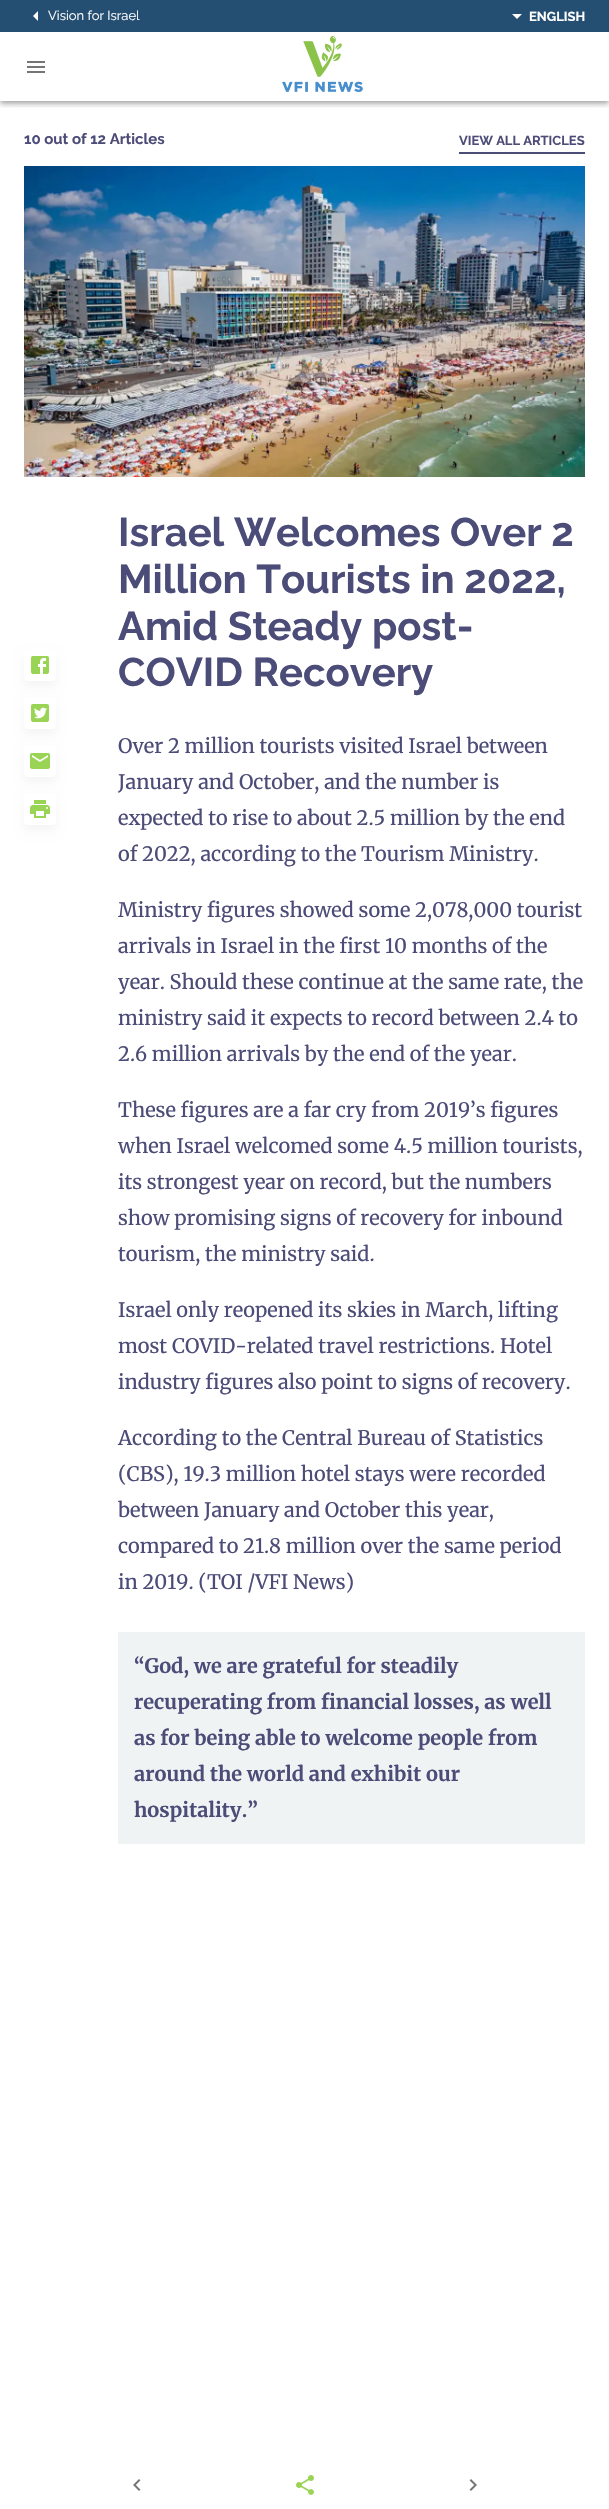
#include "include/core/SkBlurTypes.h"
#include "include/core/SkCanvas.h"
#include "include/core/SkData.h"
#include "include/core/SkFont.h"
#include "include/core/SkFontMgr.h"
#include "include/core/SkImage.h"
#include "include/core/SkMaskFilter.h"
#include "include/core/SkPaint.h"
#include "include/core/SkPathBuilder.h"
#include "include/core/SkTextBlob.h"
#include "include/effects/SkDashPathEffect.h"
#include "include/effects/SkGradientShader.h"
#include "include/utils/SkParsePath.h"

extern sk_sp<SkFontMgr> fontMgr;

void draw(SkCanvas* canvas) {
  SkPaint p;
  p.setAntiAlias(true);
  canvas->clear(SK_ColorWHITE);
  canvas->save();
  canvas->clipRect(SkRect::MakeLTRB(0, 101, 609, 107));
  p.setColor(SkColorSetARGB(31, 0, 0, 0));
  p.setMaskFilter(SkMaskFilter::MakeBlur(kNormal_SkBlurStyle, 5));
  canvas->drawRect(SkRect::MakeLTRB(0, 1, 609, 102), p);
  p.setMaskFilter(nullptr);
  canvas->restore();
  canvas->save();
  canvas->clipRect(SkRect::MakeLTRB(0, 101, 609, 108));
  p.setColor(SkColorSetARGB(36, 0, 0, 0));
  p.setMaskFilter(SkMaskFilter::MakeBlur(kNormal_SkBlurStyle, 2.5f));
  canvas->drawRect(SkRect::MakeLTRB(0, 4, 609, 105), p);
  p.setMaskFilter(nullptr);
  canvas->restore();
  canvas->save();
  canvas->clipRect(SkRect::MakeLTRB(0, 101, 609, 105));
  p.setColor(SkColorSetARGB(51, 0, 0, 0));
  p.setMaskFilter(SkMaskFilter::MakeBlur(kNormal_SkBlurStyle, 2));
  canvas->drawRect(SkRect::MakeLTRB(1, 3, 608, 102), p);
  p.setMaskFilter(nullptr);
  canvas->restore();
  p.setColor(SkColorSetRGB(37, 79, 114));
  canvas->drawRect(SkRect::MakeLTRB(0, 0, 609, 32), p);
  p.setColor(SK_ColorWHITE);
  canvas->drawPath(SkPathBuilder().moveTo(38, 11).lineTo(33, 16).lineTo(38, 21).close().detach(), p);
  canvas->drawPath(SkPathBuilder().moveTo(512, 14).lineTo(517, 19).lineTo(522, 14).close().detach(), p);
  canvas->drawImageRect(SkImages::DeferredFromEncodedData(SkData::MakeFromFileName("images/1.png")), SkRect::MakeLTRB(27, 61, 45, 73), SkSamplingOptions());
  canvas->drawImageRect(SkImages::DeferredFromEncodedData(SkData::MakeFromFileName("images/2.png")), SkRect::MakeLTRB(282, 36, 363, 92), SkSamplingOptions());
  p.setColor(SkColorSetRGB(76, 76, 120));
  canvas->drawRect(SkRect::MakeLTRB(459, 152, 585, 154), p);
  canvas->drawImageRect(SkImages::DeferredFromEncodedData(SkData::MakeFromFileName("images/3.png")), SkRect::MakeLTRB(24, 166, 585, 477), SkSamplingOptions());
  p.setColor(SkColorSetARGB(10, 0, 0, 0));
  p.setMaskFilter(SkMaskFilter::MakeBlur(kNormal_SkBlurStyle, 5));
  canvas->drawRoundRect(SkRect::MakeLTRB(24, 655, 56, 687), 4, 4, p);
  p.setMaskFilter(nullptr);
  p.setColor(SK_ColorWHITE);
  canvas->drawRoundRect(SkRect::MakeLTRB(24, 649, 56, 681), 4, 4, p);
  canvas->drawImageRect(SkImages::DeferredFromEncodedData(SkData::MakeFromFileName("images/4.png")), SkRect::MakeLTRB(31, 656, 49, 674), SkSamplingOptions());
  p.setColor(SkColorSetARGB(10, 0, 0, 0));
  p.setMaskFilter(SkMaskFilter::MakeBlur(kNormal_SkBlurStyle, 5));
  canvas->drawRoundRect(SkRect::MakeLTRB(24, 703, 56, 735), 4, 4, p);
  p.setMaskFilter(nullptr);
  p.setColor(SK_ColorWHITE);
  canvas->drawRoundRect(SkRect::MakeLTRB(24, 697, 56, 729), 4, 4, p);
  canvas->drawImageRect(SkImages::DeferredFromEncodedData(SkData::MakeFromFileName("images/5.png")), SkRect::MakeLTRB(31, 704, 49, 722), SkSamplingOptions());
  p.setColor(SkColorSetARGB(10, 0, 0, 0));
  p.setMaskFilter(SkMaskFilter::MakeBlur(kNormal_SkBlurStyle, 5));
  canvas->drawRoundRect(SkRect::MakeLTRB(24, 751, 56, 783), 4, 4, p);
  p.setMaskFilter(nullptr);
  p.setColor(SK_ColorWHITE);
  canvas->drawRoundRect(SkRect::MakeLTRB(24, 745, 56, 777), 4, 4, p);
  canvas->drawImageRect(SkImages::DeferredFromEncodedData(SkData::MakeFromFileName("images/6.png")), SkRect::MakeLTRB(30, 753, 50, 769), SkSamplingOptions());
  p.setColor(SkColorSetARGB(10, 0, 0, 0));
  p.setMaskFilter(SkMaskFilter::MakeBlur(kNormal_SkBlurStyle, 5));
  canvas->drawRoundRect(SkRect::MakeLTRB(24, 799, 56, 831), 4, 4, p);
  p.setMaskFilter(nullptr);
  p.setColor(SK_ColorWHITE);
  canvas->drawRoundRect(SkRect::MakeLTRB(24, 793, 56, 825), 4, 4, p);
  canvas->drawImageRect(SkImages::DeferredFromEncodedData(SkData::MakeFromFileName("images/7.png")), SkRect::MakeLTRB(30, 800, 50, 818), SkSamplingOptions());
  p.setColor(SkColorSetRGB(239, 243, 243));
  canvas->drawRect(SkRect::MakeLTRB(118, 1632, 585, 1844), p);
  canvas->drawImageRect(SkImages::DeferredFromEncodedData(SkData::MakeFromFileName("images/8.png")), SkRect::MakeLTRB(133, 2479, 141, 2491), SkSamplingOptions());
  canvas->drawImageRect(SkImages::DeferredFromEncodedData(SkData::MakeFromFileName("images/9.png")), SkRect::MakeLTRB(296, 2475, 314, 2495), SkSamplingOptions());
  canvas->drawImageRect(SkImages::DeferredFromEncodedData(SkData::MakeFromFileName("images/10.png")), SkRect::MakeLTRB(469, 2479, 477, 2491), SkSamplingOptions());
  SkFont font1(fontMgr->matchFamilyStyle("Raleway", SkFontStyle::Normal()), 13);
  font1.setSubpixel(true);
  p.setColor(SK_ColorWHITE);
  canvas->drawString("Vision for Israel", 48, 20, font1, p);
  SkFont font2(fontMgr->matchFamilyStyle("Raleway", SkFontStyle::Bold()), 13);
  font2.setSubpixel(true);
  canvas->drawString("ENGLISH", 529, 21, font2, p);
  SkFont font3(fontMgr->matchFamilyStyle("Raleway", SkFontStyle::Bold()), 15);
  font3.setSubpixel(true);
  p.setColor(SkColorSetRGB(76, 76, 120));
  canvas->drawString("10 out of 12 Articles", 24, 144, font3, p);
  canvas->drawString("VIEW ALL ARTICLES", 459, 145, font2, p);
  SkFont font4(fontMgr->matchFamilyStyle("Raleway", SkFontStyle::Bold()), 40);
  font4.setSubpixel(true);
  canvas->drawString("Israel Welcomes Over 2", 118, 546, font4, p);
  canvas->drawString("Million Tourists in 2022,", 118, 593, font4, p);
  canvas->drawString("Amid Steady post-", 118, 640, font4, p);
  canvas->drawString("COVID Recovery", 118, 686, font4, p);
  SkFont font5(fontMgr->matchFamilyStyle("Merriweather", SkFontStyle::Normal()), 20);
  font5.setSubpixel(true);
  canvas->drawString("Over 2 million tourists visited Israel between", 118, 753, font5, p);
  canvas->drawString("January and October, and the number is", 118, 789, font5, p);
  canvas->drawString("expected to rise to about 2.5 million by the end", 118, 825, font5, p);
  canvas->drawString("of 2022, according to the Tourism Ministry.", 118, 861, font5, p);
  canvas->drawString("Ministry figures showed some 2,078,000 tourist", 118, 917, font5, p);
  canvas->drawString("arrivals in Israel in the first 10 months of the", 118, 953, font5, p);
  canvas->drawString("year. Should these continue at the same rate, the", 118, 989, font5, p);
  canvas->drawString("ministry said it expects to record between 2.4 to", 118, 1025, font5, p);
  canvas->drawString("2.6 million arrivals by the end of the year.", 118, 1061, font5, p);
  canvas->drawString("These figures are a far cry from 2019’s figures", 118, 1117, font5, p);
  canvas->drawString("when Israel welcomed some 4.5 million tourists,", 118, 1153, font5, p);
  canvas->drawString("its strongest year on record, but the numbers", 118, 1189, font5, p);
  canvas->drawString("show promising signs of recovery for inbound", 118, 1225, font5, p);
  canvas->drawString("tourism, the ministry said.", 118, 1261, font5, p);
  canvas->drawString("Israel only reopened its skies in March, lifting", 118, 1317, font5, p);
  canvas->drawString("most COVID-related travel restrictions. Hotel", 118, 1353, font5, p);
  canvas->drawString("industry figures also point to signs of recovery.", 118, 1389, font5, p);
  canvas->drawString("According to the Central Bureau of Statistics", 118, 1445, font5, p);
  canvas->drawString("(CBS), 19.3 million hotel stays were recorded", 118, 1481, font5, p);
  canvas->drawString("between January and October this year,", 118, 1517, font5, p);
  canvas->drawString("compared to 21.8 million over the same period", 118, 1553, font5, p);
  canvas->drawString("in 2019. (TOI /VFI News)", 118, 1589, font5, p);
  SkFont font6(fontMgr->matchFamilyStyle("Merriweather", SkFontStyle::Bold()), 20);
  font6.setSubpixel(true);
  canvas->drawString("“God, we are grateful for steadily", 134, 1673, font6, p);
  canvas->drawString("recuperating from financial losses, as well", 134, 1709, font6, p);
  canvas->drawString("as for being able to welcome people from", 134, 1745, font6, p);
  canvas->drawString("around the world and exhibit our", 134, 1781, font6, p);
  canvas->drawString("hospitality.”", 134, 1817, font6, p);
}
